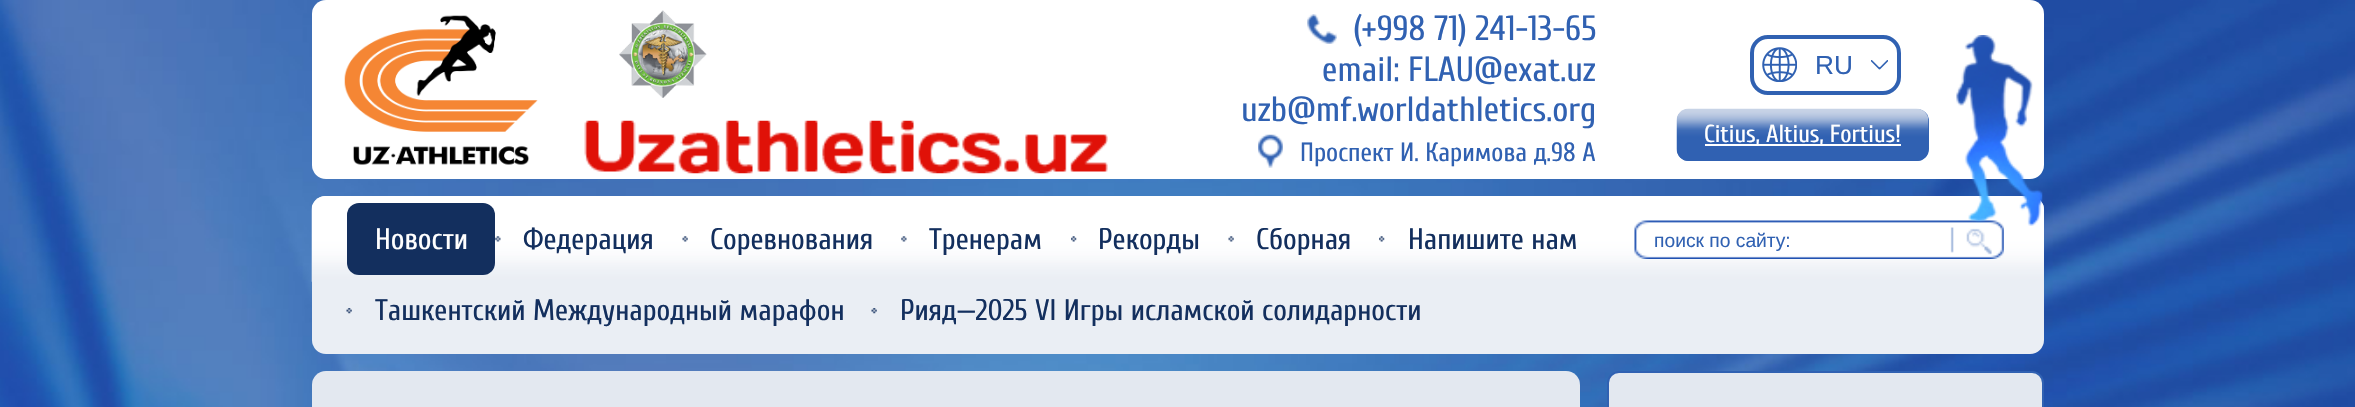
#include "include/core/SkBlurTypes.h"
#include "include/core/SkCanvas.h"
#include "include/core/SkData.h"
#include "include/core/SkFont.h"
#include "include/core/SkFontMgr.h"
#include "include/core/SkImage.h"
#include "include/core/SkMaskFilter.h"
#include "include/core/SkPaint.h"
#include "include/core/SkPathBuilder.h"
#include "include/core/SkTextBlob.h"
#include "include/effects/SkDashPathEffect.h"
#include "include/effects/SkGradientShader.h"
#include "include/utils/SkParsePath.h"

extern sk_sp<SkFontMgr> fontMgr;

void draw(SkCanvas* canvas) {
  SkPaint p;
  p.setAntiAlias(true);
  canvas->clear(SK_ColorWHITE);
  canvas->drawImageRect(SkImages::DeferredFromEncodedData(SkData::MakeFromFileName("images/1.png")), SkRect::MakeLTRB(0, 0, 2355, 407), SkSamplingOptions());
  p.setColor(SK_ColorWHITE);
  canvas->drawRoundRect(SkRect::MakeLTRB(312, 0, 2044, 179), 14, 14, p);
  canvas->drawImageRect(SkImages::DeferredFromEncodedData(SkData::MakeFromFileName("images/2.png")), SkRect::MakeLTRB(344, 15, 538, 165), SkSamplingOptions());
  canvas->drawImageRect(SkImages::DeferredFromEncodedData(SkData::MakeFromFileName("images/3.png")), SkRect::MakeLTRB(619, 10, 707, 98), SkSamplingOptions());
  canvas->drawImageRect(SkImages::DeferredFromEncodedData(SkData::MakeFromFileName("images/4.png")), SkRect::MakeLTRB(584, 120, 1108, 174), SkSamplingOptions());
  canvas->drawImageRect(SkImages::DeferredFromEncodedData(SkData::MakeFromFileName("images/5.png")), SkRect::MakeLTRB(1307, 14, 1337, 44), SkSamplingOptions());
  canvas->drawImageRect(SkImages::DeferredFromEncodedData(SkData::MakeFromFileName("images/6.png")), SkRect::MakeLTRB(1258, 134, 1283, 168), SkSamplingOptions());
  p.setColor(SkColorSetRGB(48, 97, 178));
  canvas->drawRoundRect(SkRect::MakeLTRB(1677, 109, 1929, 161), 12, 12, p);
  canvas->drawImageRect(SkImages::DeferredFromEncodedData(SkData::MakeFromFileName("images/7.png")), SkRect::MakeLTRB(1676, 108, 1929, 161), SkSamplingOptions());
  p.setColor(SK_ColorWHITE);
  canvas->drawRect(SkRect::MakeLTRB(1705, 144, 1901, 146), p);
  p.setColor(SkColorSetRGB(234, 238, 244));
  canvas->drawRoundRect(SkRect::MakeLTRB(312, 196, 2044, 354), 14, 14, p);
  canvas->drawImageRect(SkImages::DeferredFromEncodedData(SkData::MakeFromFileName("images/11.png")), SkRect::MakeLTRB(311, 196, 2044, 282), SkSamplingOptions());
  canvas->drawImageRect(SkImages::DeferredFromEncodedData(SkData::MakeFromFileName("images/16.png")), SkRect::MakeLTRB(1634, 220, 2004, 259), SkSamplingOptions());
  canvas->drawImageRect(SkImages::DeferredFromEncodedData(SkData::MakeFromFileName("images/8.png")), SkRect::MakeLTRB(1956, 35, 2043, 226), SkSamplingOptions());
  p.setStyle(SkPaint::kStroke_Style);
  p.setStrokeWidth(4);
  p.setColor(SkColorSetRGB(48, 97, 178));
  canvas->drawRoundRect(SkRect::MakeLTRB(1752, 37, 1899, 93), 16, 16, p);
  canvas->drawImageRect(SkImages::DeferredFromEncodedData(SkData::MakeFromFileName("images/9.png")), SkRect::MakeLTRB(1762, 47, 1797, 82), SkSamplingOptions());
  canvas->drawImageRect(SkImages::DeferredFromEncodedData(SkData::MakeFromFileName("images/10.png")), SkRect::MakeLTRB(1871, 60, 1888, 70), SkSamplingOptions());
  p.setStyle(SkPaint::kFill_Style);
  p.setColor(SkColorSetRGB(19, 47, 94));
  canvas->drawRoundRect(SkRect::MakeLTRB(347, 203, 495, 275), 12, 12, p);
  canvas->drawImageRect(SkImages::DeferredFromEncodedData(SkData::MakeFromFileName("images/12.png")), SkRect::MakeLTRB(495, 236, 501, 242), SkSamplingOptions());
  canvas->drawImageRect(SkImages::DeferredFromEncodedData(SkData::MakeFromFileName("images/13.png")), SkRect::MakeLTRB(682, 236, 688, 242), SkSamplingOptions());
  canvas->drawImageRect(SkImages::DeferredFromEncodedData(SkData::MakeFromFileName("images/12.png")), SkRect::MakeLTRB(901, 236, 907, 242), SkSamplingOptions());
  canvas->drawImageRect(SkImages::DeferredFromEncodedData(SkData::MakeFromFileName("images/14.png")), SkRect::MakeLTRB(1071, 236, 1077, 242), SkSamplingOptions());
  canvas->drawImageRect(SkImages::DeferredFromEncodedData(SkData::MakeFromFileName("images/13.png")), SkRect::MakeLTRB(1228, 236, 1234, 242), SkSamplingOptions());
  canvas->drawImageRect(SkImages::DeferredFromEncodedData(SkData::MakeFromFileName("images/14.png")), SkRect::MakeLTRB(1379, 236, 1385, 242), SkSamplingOptions());
  canvas->drawImageRect(SkImages::DeferredFromEncodedData(SkData::MakeFromFileName("images/15.png")), SkRect::MakeLTRB(346, 308, 352, 314), SkSamplingOptions());
  canvas->drawImageRect(SkImages::DeferredFromEncodedData(SkData::MakeFromFileName("images/15.png")), SkRect::MakeLTRB(871, 308, 877, 314), SkSamplingOptions());
  p.setColor(SkColorSetRGB(227, 232, 240));
  canvas->drawRoundRect(SkRect::MakeLTRB(312, 371, 1580, 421), 14, 14, p);
  canvas->drawRoundRect(SkRect::MakeLTRB(1608, 372, 2043, 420), 11, 11, p);
  p.setStyle(SkPaint::kStroke_Style);
  p.setStrokeWidth(2);
  p.setColor(SkColorSetRGB(48, 97, 178));
  canvas->drawRoundRect(SkRect::MakeLTRB(1608, 372, 2043, 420), 11, 11, p);
  SkFont font1(fontMgr->matchFamilyStyle("Cuprum", SkFontStyle::Normal()), 35);
  font1.setSubpixel(true);
  p.setStyle(SkPaint::kFill_Style);
  canvas->drawString("(+998 71) 241-13-65", 1353, 40, font1, p);
  canvas->drawString("email: FLAU@exat.uz", 1322, 81, font1, p);
  canvas->drawString("uzb@mf.worldathletics.org", 1241, 121, font1, p);
  SkFont font2(fontMgr->matchFamilyStyle("Cuprum", SkFontStyle::Normal()), 26.25f);
  font2.setSubpixel(true);
  canvas->drawString("Проспект И. Каримова д.98 А", 1300, 161, font2, p);
  SkFont font3(fontMgr->matchFamilyStyle("Cuprum", SkFontStyle::Normal()), 24.5f);
  font3.setSubpixel(true);
  p.setColor(SK_ColorWHITE);
  canvas->drawString("Citius, Altius, Fortius!", 1704, 142, font3, p);
  SkFont font4(fontMgr->matchFamilyStyle("Liberation Sans", SkFontStyle::Normal()), 26.25f);
  font4.setSubpixel(true);
  p.setColor(SkColorSetRGB(48, 97, 178));
  canvas->drawString("RU", 1815, 74, font4, p);
  SkFont font5(fontMgr->matchFamilyStyle("Cuprum", SkFontStyle::Normal()), 29.75f);
  font5.setSubpixel(true);
  p.setColor(SK_ColorWHITE);
  canvas->drawString("Новости", 375, 249, font5, p);
  p.setColor(SkColorSetRGB(19, 47, 94));
  canvas->drawString("Федерация", 523, 249, font5, p);
  canvas->drawString("Соревнования", 710, 249, font5, p);
  canvas->drawString("Тренерам", 929, 249, font5, p);
  canvas->drawString("Рекорды", 1098, 249, font5, p);
  canvas->drawString("Сборная", 1256, 249, font5, p);
  canvas->drawString("Напишите нам", 1408, 249, font5, p);
  canvas->drawString("Ташкентский Международный марафон", 375, 320, font5, p);
  canvas->drawString("Рияд—2025 VI Игры исламской солидарности", 900, 320, font5, p);
  SkFont font6(fontMgr->matchFamilyStyle("Liberation Sans", SkFontStyle::Normal()), 19.25f);
  font6.setSubpixel(true);
  p.setColor(SkColorSetRGB(48, 97, 178));
  canvas->drawString("поиск по сайту:", 1654, 247, font6, p);
}
